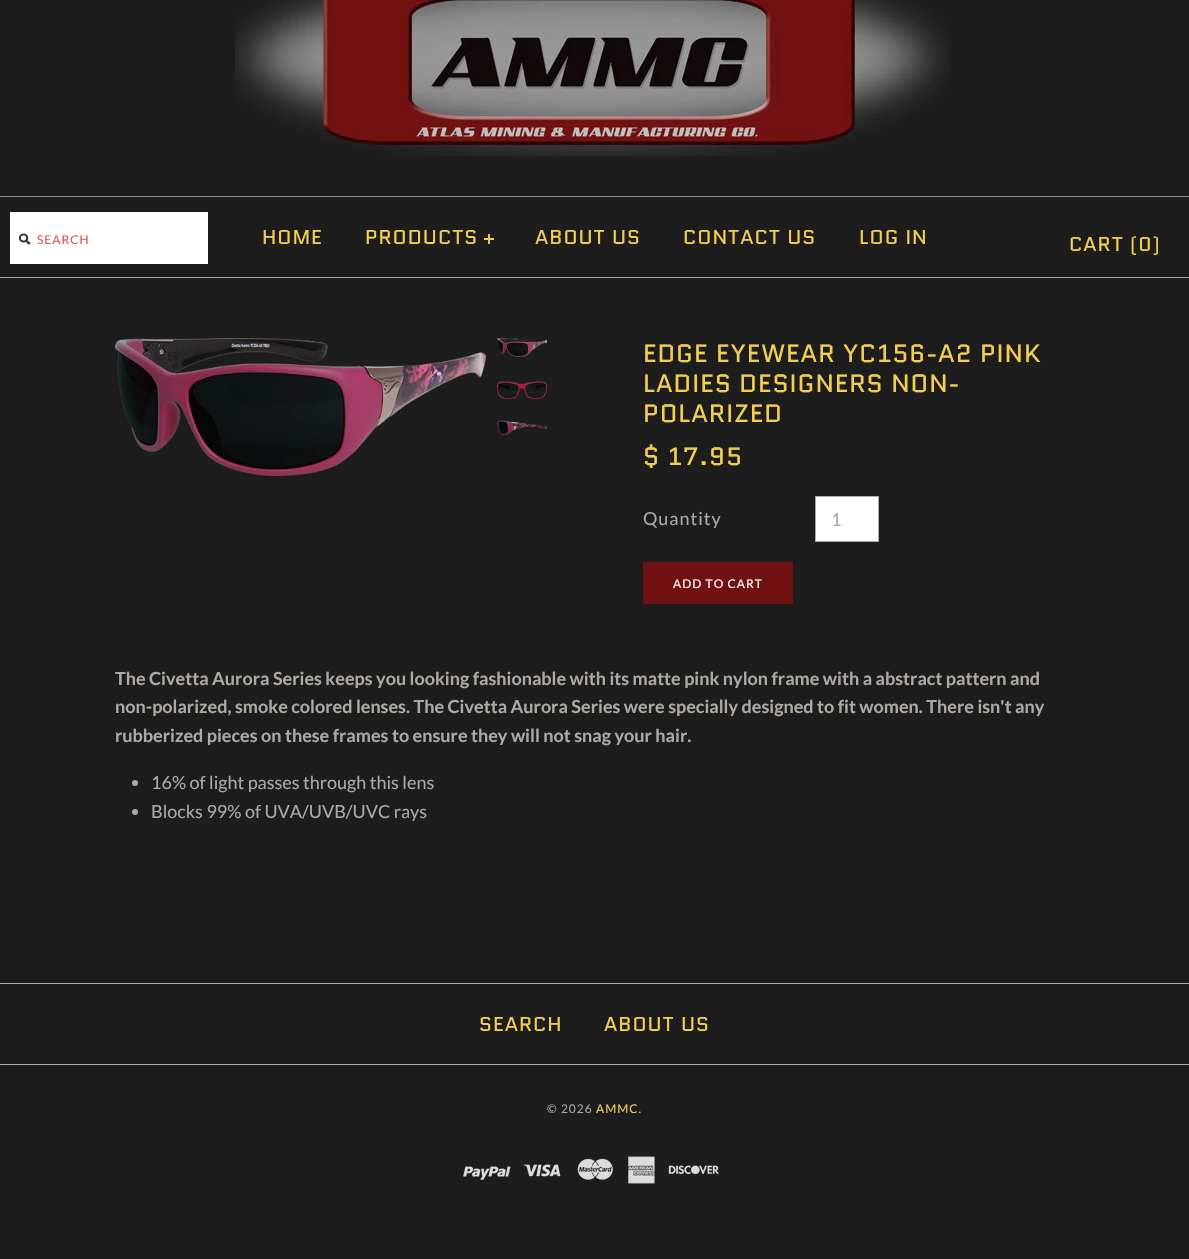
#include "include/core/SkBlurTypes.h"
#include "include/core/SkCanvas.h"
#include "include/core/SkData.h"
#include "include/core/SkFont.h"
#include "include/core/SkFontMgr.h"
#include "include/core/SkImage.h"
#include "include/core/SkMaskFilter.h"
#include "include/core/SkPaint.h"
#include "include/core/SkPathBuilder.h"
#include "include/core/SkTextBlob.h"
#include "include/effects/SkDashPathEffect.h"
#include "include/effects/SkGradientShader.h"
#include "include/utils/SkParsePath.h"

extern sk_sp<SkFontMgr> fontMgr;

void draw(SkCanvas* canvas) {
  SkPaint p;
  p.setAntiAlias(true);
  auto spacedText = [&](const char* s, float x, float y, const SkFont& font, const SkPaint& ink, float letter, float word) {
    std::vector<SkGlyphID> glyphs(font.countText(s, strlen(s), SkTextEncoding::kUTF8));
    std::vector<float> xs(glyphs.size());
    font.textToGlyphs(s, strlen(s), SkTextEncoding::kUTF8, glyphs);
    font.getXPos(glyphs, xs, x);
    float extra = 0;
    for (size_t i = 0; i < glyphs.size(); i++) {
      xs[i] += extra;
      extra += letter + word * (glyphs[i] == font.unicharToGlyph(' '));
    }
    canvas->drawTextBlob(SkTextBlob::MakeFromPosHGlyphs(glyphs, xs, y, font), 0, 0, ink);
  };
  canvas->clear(SkColorSetRGB(29, 29, 29));
  canvas->drawImageRect(SkImages::DeferredFromEncodedData(SkData::MakeFromFileName("images/1.png")), SkRect::MakeLTRB(235, 0, 951, 156), SkSamplingOptions());
  p.setColor(SkColorSetRGB(174, 169, 163));
  canvas->drawRect(SkRect::MakeLTRB(0, 277, 1189, 278), p);
  p.setColor(SkColorSetRGB(138, 143, 147));
  canvas->drawRect(SkRect::MakeLTRB(0, 196, 1189, 197), p);
  p.setColor(SK_ColorWHITE);
  canvas->drawRect(SkRect::MakeLTRB(10, 212, 208, 264), p);
  canvas->drawImageRect(SkImages::DeferredFromEncodedData(SkData::MakeFromFileName("images/2.png")), SkRect::MakeLTRB(19, 233, 31, 245), SkSamplingOptions());
  canvas->drawImageRect(SkImages::DeferredFromEncodedData(SkData::MakeFromFileName("images/3.png")), SkRect::MakeLTRB(115, 338, 486, 476), SkSamplingOptions());
  canvas->drawImageRect(SkImages::DeferredFromEncodedData(SkData::MakeFromFileName("images/4.png")), SkRect::MakeLTRB(497, 338, 547, 357), SkSamplingOptions());
  canvas->drawImageRect(SkImages::DeferredFromEncodedData(SkData::MakeFromFileName("images/5.png")), SkRect::MakeLTRB(497, 380, 547, 399), SkSamplingOptions());
  canvas->drawImageRect(SkImages::DeferredFromEncodedData(SkData::MakeFromFileName("images/6.png")), SkRect::MakeLTRB(497, 420, 547, 435), SkSamplingOptions());
  canvas->drawRect(SkRect::MakeLTRB(815.5f, 496.5f, 878.5f, 541.5f), p);
  p.setStyle(SkPaint::kStroke_Style);
  p.setStrokeWidth(1);
  p.setColor(SkColorSetRGB(174, 169, 163));
  canvas->drawRect(SkRect::MakeLTRB(815.5f, 496.5f, 878.5f, 541.5f), p);
  p.setStyle(SkPaint::kFill_Style);
  p.setColor(SkColorSetRGB(113, 17, 18));
  canvas->drawRect(SkRect::MakeLTRB(643, 562, 793, 604), p);
  p.setColor(SkColorSetRGB(174, 169, 163));
  canvas->drawCircle(135, 783, 3, p);
  canvas->drawCircle(135, 812, 3, p);
  canvas->drawRect(SkRect::MakeLTRB(0, 983, 1189, 984), p);
  canvas->drawRect(SkRect::MakeLTRB(0, 1064, 1189, 1065), p);
  canvas->drawImageRect(SkImages::DeferredFromEncodedData(SkData::MakeFromFileName("images/7.png")), SkRect::MakeLTRB(463, 1166, 511, 1180), SkSamplingOptions());
  canvas->drawImageRect(SkImages::DeferredFromEncodedData(SkData::MakeFromFileName("images/8.png")), SkRect::MakeLTRB(523, 1164, 561, 1177), SkSamplingOptions());
  canvas->drawImageRect(SkImages::DeferredFromEncodedData(SkData::MakeFromFileName("images/9.png")), SkRect::MakeLTRB(577, 1158, 613, 1180), SkSamplingOptions());
  canvas->drawImageRect(SkImages::DeferredFromEncodedData(SkData::MakeFromFileName("images/10.png")), SkRect::MakeLTRB(628, 1156, 655, 1184), SkSamplingOptions());
  canvas->drawImageRect(SkImages::DeferredFromEncodedData(SkData::MakeFromFileName("images/11.png")), SkRect::MakeLTRB(668, 1165, 719, 1175), SkSamplingOptions());
  SkFont font1(fontMgr->matchFamilyStyle("Lato", SkFontStyle::Normal()), 12);
  font1.setSubpixel(true);
  p.setColor(SkColorSetRGB(221, 84, 84));
  spacedText("SEARCH", 37, 244, font1, p, 1, 0);
  SkFont font2(fontMgr->matchFamilyStyle("Quantico", SkFontStyle::Normal()), 20);
  font2.setSubpixel(true);
  p.setColor(SkColorSetRGB(244, 206, 83));
  spacedText("HOME", 262, 244, font2, p, 1, 0);
  spacedText("PRODUCTS", 365, 244, font2, p, 1, 0);
  spacedText("+", 483, 244, font2, p, 1, 0);
  spacedText("ABOUT US", 535, 244, font2, p, 1, 0);
  spacedText("CONTACT US", 683, 244, font2, p, 1, 0);
  spacedText("LOG IN", 859, 244, font2, p, 1, 0);
  spacedText("CART (0)", 1069, 251, font2, p, 1, 0);
  SkFont font3(fontMgr->matchFamilyStyle("Quantico", SkFontStyle::Normal()), 25);
  font3.setSubpixel(true);
  spacedText("EDGE EYEWEAR YC156-A2 PINK", 643, 362, font3, p, 1, 0);
  spacedText("LADIES DESIGNERS NON-", 643, 392, font3, p, 1, 0);
  spacedText("POLARIZED", 643, 422, font3, p, 1, 0);
  spacedText("$ 17.95", 643, 465, font3, p, 1, 0);
  SkFont font4(fontMgr->matchFamilyStyle("Lato", SkFontStyle::Normal()), 18);
  font4.setSubpixel(true);
  p.setColor(SkColorSetRGB(174, 169, 163));
  spacedText("Quantity", 643, 525, font4, p, 1, 0);
  spacedText("1", 831, 526, font4, p, 1, 0);
  p.setColor(SK_ColorWHITE);
  spacedText("ADD TO CART", 673, 588, font1, p, 1, 0);
  SkFont font5(fontMgr->matchFamilyStyle("Lato", SkFontStyle::Bold()), 18);
  font5.setSubpixel(true);
  p.setColor(SkColorSetRGB(174, 169, 163));
  canvas->drawString("The Civetta Aurora Series keeps you looking fashionable with its matte pink nylon frame with a abstract pattern and", 115, 685, font5, p);
  canvas->drawString("non-polarized, smoke colored lenses. The Civetta Aurora Series were specially designed to fit women. There isn't any", 115, 713, font5, p);
  canvas->drawString("rubberized pieces on these frames to ensure they will not snag your hair.", 115, 742, font5, p);
  canvas->drawString("16% of light passes through this lens", 151, 789, font4, p);
  canvas->drawString("Blocks 99% of UVA/UVB/UVC rays", 151, 818, font4, p);
  p.setColor(SkColorSetRGB(244, 206, 83));
  spacedText("SEARCH", 479, 1031, font2, p, 1, 0);
  spacedText("ABOUT US", 604, 1031, font2, p, 1, 0);
  p.setColor(SkColorSetRGB(174, 169, 163));
  spacedText("© 2026", 547, 1113, font1, p, 1, 0);
  p.setColor(SkColorSetRGB(244, 206, 83));
  spacedText("AMMC.", 596, 1113, font1, p, 1, 0);
}
